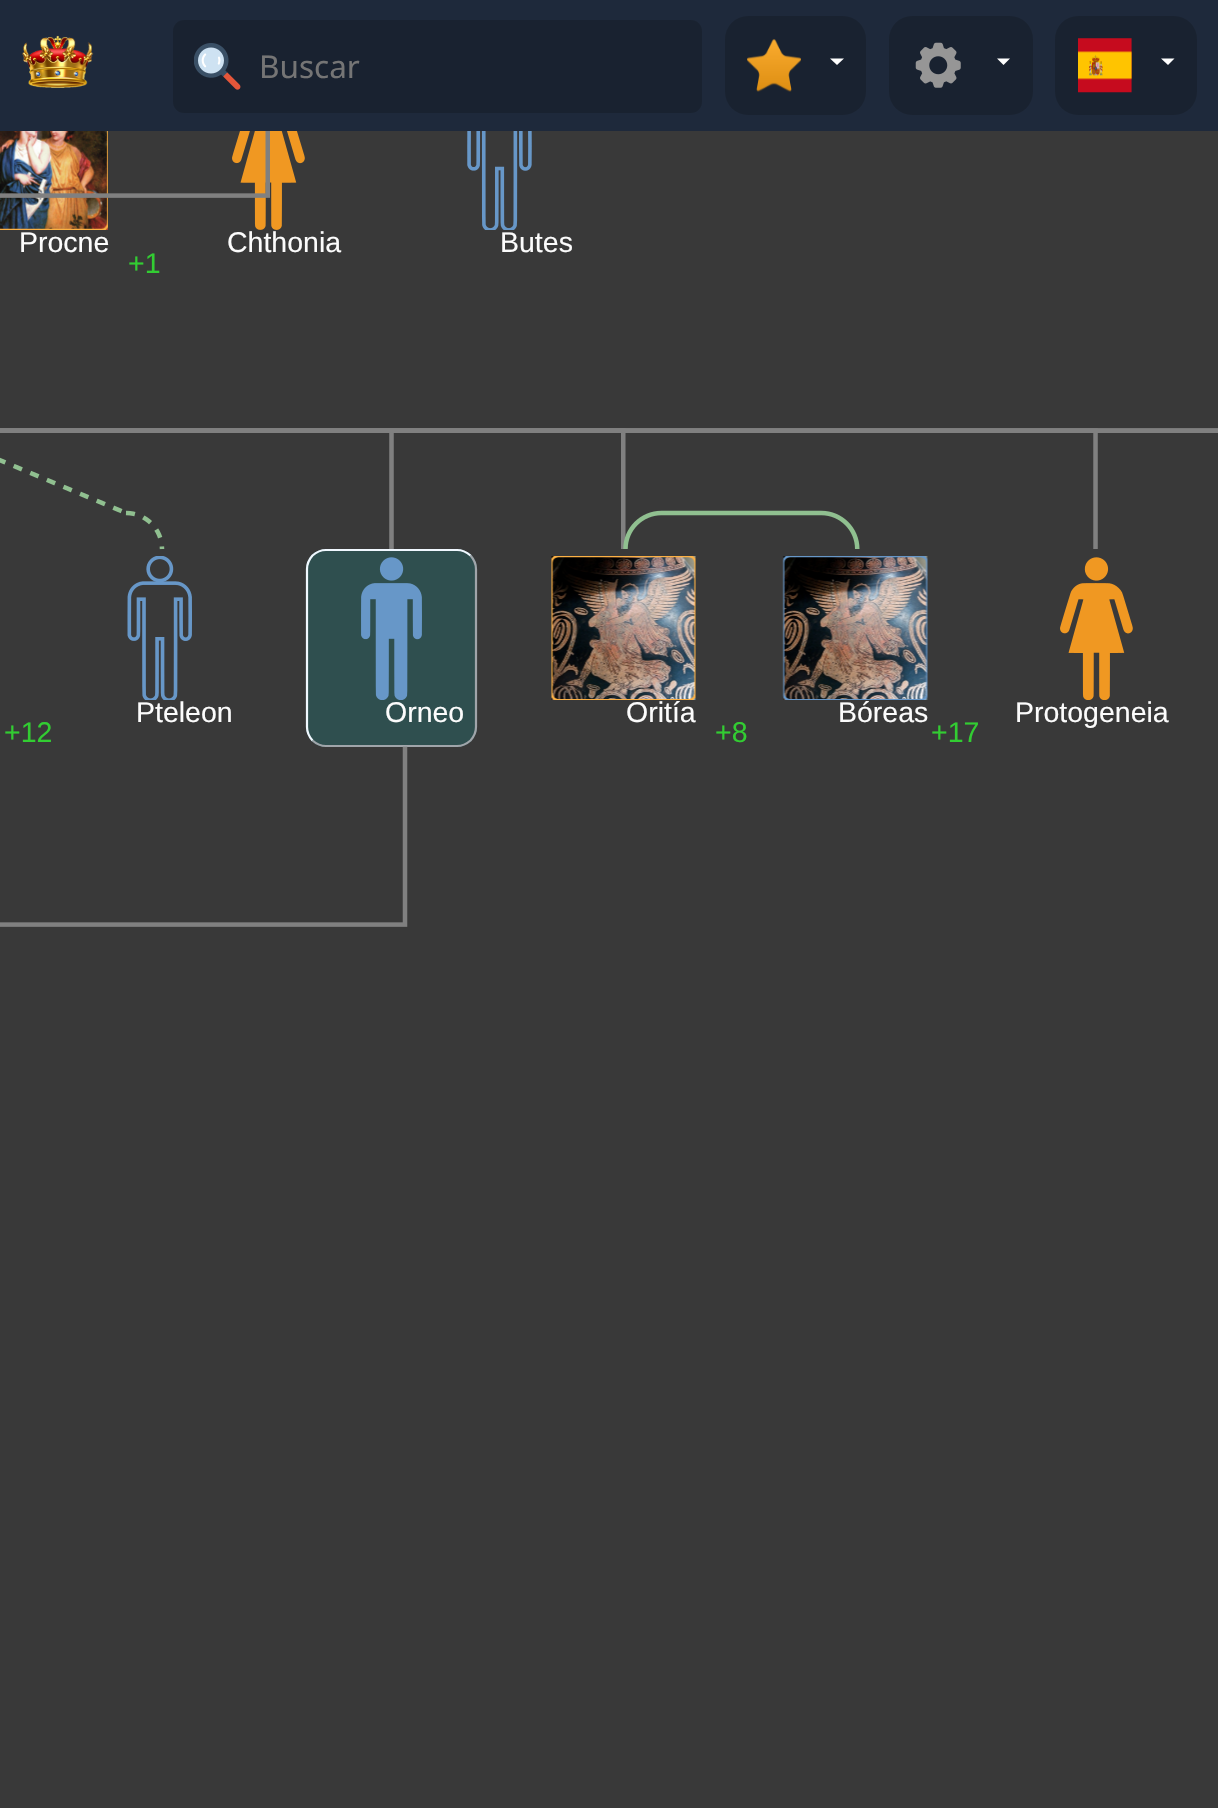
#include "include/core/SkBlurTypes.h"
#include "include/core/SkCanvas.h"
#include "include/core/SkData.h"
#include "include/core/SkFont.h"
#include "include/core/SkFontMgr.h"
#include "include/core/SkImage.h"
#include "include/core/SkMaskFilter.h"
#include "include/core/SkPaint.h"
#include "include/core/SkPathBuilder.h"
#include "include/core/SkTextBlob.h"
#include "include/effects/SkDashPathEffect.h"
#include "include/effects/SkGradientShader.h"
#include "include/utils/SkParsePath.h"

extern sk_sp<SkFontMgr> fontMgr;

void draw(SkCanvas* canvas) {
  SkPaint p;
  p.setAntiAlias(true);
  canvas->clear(SkColorSetRGB(57, 57, 57));
  p.setColor(SkColorSetRGB(30, 41, 59));
  canvas->drawRect(SkRect::MakeLTRB(0, 0, 1218, 131), p);
  canvas->drawImageRect(SkImages::DeferredFromEncodedData(SkData::MakeFromFileName("images/1.png")), SkRect::MakeLTRB(22, 35, 94, 88), SkSamplingOptions());
  p.setColor(SkColorSetRGB(25, 34, 48));
  canvas->drawRoundRect(SkRect::MakeLTRB(173, 20, 702, 113), 11, 11, p);
  canvas->drawImageRect(SkImages::DeferredFromEncodedData(SkData::MakeFromFileName("images/2.png")), SkRect::MakeLTRB(194, 43, 241, 90), SkSamplingOptions());
  canvas->drawRoundRect(SkRect::MakeLTRB(725, 16, 866, 115), 23, 23, p);
  canvas->drawImageRect(SkImages::DeferredFromEncodedData(SkData::MakeFromFileName("images/3.png")), SkRect::MakeLTRB(747, 39, 801, 92), SkSamplingOptions());
  p.setColor(SK_ColorWHITE);
  canvas->drawPath(SkPathBuilder().moveTo(830, 58.5f).lineTo(844, 58.5f).lineTo(837, 65).close().detach(), p);
  p.setColor(SkColorSetRGB(25, 34, 48));
  canvas->drawRoundRect(SkRect::MakeLTRB(889, 16, 1033, 115), 23, 23, p);
  canvas->drawImageRect(SkImages::DeferredFromEncodedData(SkData::MakeFromFileName("images/4.png")), SkRect::MakeLTRB(915, 42, 961, 88), SkSamplingOptions());
  p.setColor(SK_ColorWHITE);
  canvas->drawPath(SkPathBuilder().moveTo(997, 58.5f).lineTo(1010, 58.5f).lineTo(1003.5f, 65).close().detach(), p);
  p.setColor(SkColorSetRGB(25, 34, 48));
  canvas->drawRoundRect(SkRect::MakeLTRB(1055, 16, 1197, 115), 23, 23, p);
  canvas->drawImageRect(SkImages::DeferredFromEncodedData(SkData::MakeFromFileName("images/5.png")), SkRect::MakeLTRB(1078, 38, 1132, 93), SkSamplingOptions());
  p.setColor(SK_ColorWHITE);
  canvas->drawPath(SkPathBuilder().moveTo(1161, 58.5f).lineTo(1174.5f, 58.5f).lineTo(1168, 65).close().detach(), p);
  canvas->drawImageRect(SkImages::DeferredFromEncodedData(SkData::MakeFromFileName("images/7.png")), SkRect::MakeLTRB(0, 131, 108, 230), SkSamplingOptions());
  canvas->drawImageRect(SkImages::DeferredFromEncodedData(SkData::MakeFromFileName("images/8.png")), SkRect::MakeLTRB(232, 131, 305, 230), SkSamplingOptions());
  canvas->drawImageRect(SkImages::DeferredFromEncodedData(SkData::MakeFromFileName("images/9.png")), SkRect::MakeLTRB(467, 131, 532, 230), SkSamplingOptions());
  canvas->drawImageRect(SkImages::DeferredFromEncodedData(SkData::MakeFromFileName("images/10.png")), SkRect::MakeLTRB(127, 556, 192, 700), SkSamplingOptions());
  p.setColor(SkColorSetRGB(47, 79, 79));
  canvas->drawRoundRect(SkRect::MakeLTRB(306, 549, 477, 747), 20, 20, p);
  p.setStyle(SkPaint::kStroke_Style);
  p.setStrokeWidth(2.2f);
  p.setColor(SkColorSetRGB(160, 165, 170));
  canvas->drawPath(SkPathBuilder().moveTo(470.5f, 555.5f).cubicTo(474, 559.5f, 476, 564, 476, 569).lineTo(476, 727).cubicTo(476, 732, 474, 736.5f, 470.5f, 740.5f).cubicTo(466.5f, 744, 462, 746, 457, 746).lineTo(326, 746).cubicTo(321, 746, 316.5f, 744, 312.5f, 740.5f).detach(), p);
  p.setColor(SkColorSetRGB(240, 248, 255));
  canvas->drawPath(SkPathBuilder().moveTo(312.5f, 740.5f).cubicTo(309, 736.5f, 307, 732, 307, 727).lineTo(307, 569).cubicTo(307, 564, 309, 559.5f, 312.5f, 555.5f).cubicTo(316.5f, 552, 321, 550, 326, 550).lineTo(457, 550).cubicTo(462, 550, 466.5f, 552, 470.5f, 555.5f).detach(), p);
  canvas->drawImageRect(SkImages::DeferredFromEncodedData(SkData::MakeFromFileName("images/11.png")), SkRect::MakeLTRB(361, 557, 422, 700), SkSamplingOptions());
  canvas->drawImageRect(SkImages::DeferredFromEncodedData(SkData::MakeFromFileName("images/12.png")), SkRect::MakeLTRB(551, 556, 696, 700), SkSamplingOptions());
  canvas->drawImageRect(SkImages::DeferredFromEncodedData(SkData::MakeFromFileName("images/13.png")), SkRect::MakeLTRB(782, 556, 928, 700), SkSamplingOptions());
  canvas->drawImageRect(SkImages::DeferredFromEncodedData(SkData::MakeFromFileName("images/14.png")), SkRect::MakeLTRB(1060, 557, 1133, 700), SkSamplingOptions());
  SkFont font1(fontMgr->matchFamilyStyle("Noto Sans", SkFontStyle::Normal()), 31.5f);
  font1.setSubpixel(true);
  p.setStyle(SkPaint::kFill_Style);
  p.setColor(SkColorSetRGB(117, 117, 117));
  canvas->drawString("Buscar", 259, 78, font1, p);
  SkFont font2(fontMgr->matchFamilyStyle("Liberation Sans", SkFontStyle::Normal()), 28.5f);
  font2.setSubpixel(true);
  p.setColor(SkColorSetRGB(252, 252, 252));
  canvas->drawString("Procne", 19, 252, font2, p);
  canvas->drawString("Chthonia", 227, 252, font2, p);
  canvas->drawString("Butes", 500, 252, font2, p);
  canvas->drawString("Pteleon", 136, 722, font2, p);
  canvas->drawString("Orneo", 385, 722, font2, p);
  canvas->drawString("Oritía", 626, 722, font2, p);
  canvas->drawString("Bóreas", 838, 722, font2, p);
  canvas->drawString("Protogeneia", 1015, 722, font2, p);
  canvas->drawImageRect(SkImages::DeferredFromEncodedData(SkData::MakeFromFileName("images/6.png")), SkRect::MakeLTRB(0, 131, 1218, 927), SkSamplingOptions());
  p.setColor(SkColorSetRGB(50, 205, 50));
  canvas->drawString("+17", 931, 742, font2, p);
  canvas->drawString("+8", 715, 742, font2, p);
  canvas->drawString("+1", 128, 273, font2, p);
  canvas->drawString("+12", 4, 742, font2, p);
}
